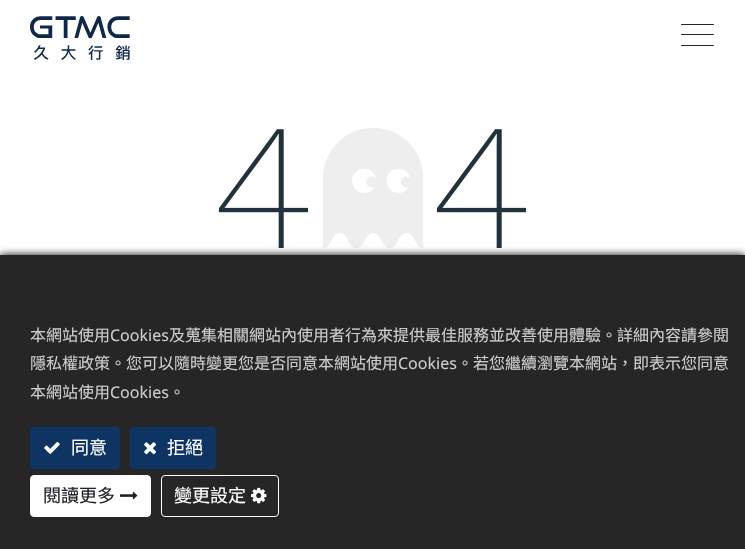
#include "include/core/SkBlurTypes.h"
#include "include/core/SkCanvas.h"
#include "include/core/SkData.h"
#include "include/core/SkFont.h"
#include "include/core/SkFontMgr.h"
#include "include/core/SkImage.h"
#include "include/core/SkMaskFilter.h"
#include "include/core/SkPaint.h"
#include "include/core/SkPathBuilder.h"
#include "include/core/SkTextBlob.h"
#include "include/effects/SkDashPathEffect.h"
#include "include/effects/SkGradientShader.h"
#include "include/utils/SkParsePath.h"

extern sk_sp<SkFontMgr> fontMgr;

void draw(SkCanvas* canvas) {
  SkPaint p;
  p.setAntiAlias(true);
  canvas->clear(SK_ColorWHITE);
  canvas->drawImageRect(SkImages::DeferredFromEncodedData(SkData::MakeFromFileName("images/1.png")), SkRect::MakeLTRB(30, 16, 130, 60), SkSamplingOptions());
  p.setColor(SkColorSetRGB(37, 37, 37));
  canvas->drawRoundRect(SkRect::MakeLTRB(681, 24, 714, 25), 0.5f, 0.5f, p);
  canvas->drawRoundRect(SkRect::MakeLTRB(681, 34, 714, 35), 0.5f, 0.5f, p);
  canvas->drawRoundRect(SkRect::MakeLTRB(681, 45, 714, 46), 0.5f, 0.5f, p);
  canvas->drawImageRect(SkImages::DeferredFromEncodedData(SkData::MakeFromFileName("images/2.png")), SkRect::MakeLTRB(218, 128, 526, 248), SkSamplingOptions());
  p.setColor(SK_ColorBLACK);
  p.setMaskFilter(SkMaskFilter::MakeBlur(kNormal_SkBlurStyle, 4));
  canvas->drawRect(SkRect::MakeLTRB(0, 255, 745, 549), p);
  p.setMaskFilter(nullptr);
  p.setColor(SkColorSetRGB(38, 38, 38));
  canvas->drawRect(SkRect::MakeLTRB(0, 255, 745, 549), p);
  p.setColor(SkColorSetRGB(13, 52, 98));
  canvas->drawRoundRect(SkRect::MakeLTRB(30.5f, 427.5f, 119.5f, 468.5f), 3.5f, 3.5f, p);
  p.setStyle(SkPaint::kStroke_Style);
  p.setStrokeWidth(1);
  canvas->drawRoundRect(SkRect::MakeLTRB(30.5f, 427.5f, 119.5f, 468.5f), 3.5f, 3.5f, p);
  canvas->drawImageRect(SkImages::DeferredFromEncodedData(SkData::MakeFromFileName("images/3.png")), SkRect::MakeLTRB(44, 441, 60, 454), SkSamplingOptions());
  p.setStyle(SkPaint::kFill_Style);
  canvas->drawRoundRect(SkRect::MakeLTRB(130.5f, 427.5f, 215.5f, 468.5f), 3.5f, 3.5f, p);
  p.setStyle(SkPaint::kStroke_Style);
  canvas->drawRoundRect(SkRect::MakeLTRB(130.5f, 427.5f, 215.5f, 468.5f), 3.5f, 3.5f, p);
  canvas->drawImageRect(SkImages::DeferredFromEncodedData(SkData::MakeFromFileName("images/4.png")), SkRect::MakeLTRB(144, 442, 156, 455), SkSamplingOptions());
  p.setStyle(SkPaint::kFill_Style);
  p.setColor(SK_ColorWHITE);
  canvas->drawRoundRect(SkRect::MakeLTRB(30.5f, 475.5f, 150.5f, 516.5f), 3.5f, 3.5f, p);
  p.setStyle(SkPaint::kStroke_Style);
  canvas->drawRoundRect(SkRect::MakeLTRB(30.5f, 475.5f, 150.5f, 516.5f), 3.5f, 3.5f, p);
  canvas->drawImageRect(SkImages::DeferredFromEncodedData(SkData::MakeFromFileName("images/5.png")), SkRect::MakeLTRB(120, 491, 138, 500), SkSamplingOptions());
  canvas->drawRoundRect(SkRect::MakeLTRB(161.5f, 475.5f, 278.5f, 516.5f), 3.5f, 3.5f, p);
  canvas->drawImageRect(SkImages::DeferredFromEncodedData(SkData::MakeFromFileName("images/6.png")), SkRect::MakeLTRB(251, 487, 267, 504), SkSamplingOptions());
  SkFont font1(fontMgr->matchFamilyStyle("Noto Sans CJK TC", SkFontStyle::Normal()), 16);
  font1.setSubpixel(true);
  p.setStyle(SkPaint::kFill_Style);
  p.setColor(SkColorSetRGB(204, 204, 204));
  canvas->drawString("本網站使用", 30, 341, font1, p);
  SkFont font2(fontMgr->matchFamilyStyle("Noto Sans", SkFontStyle::Normal()), 16);
  font2.setSubpixel(true);
  canvas->drawString("Cookies", 110, 341, font2, p);
  canvas->drawString("及蒐集相關網站內使用者行為來提供最佳服務並改善使用體驗。詳細內容請參閱", 169, 341, font1, p);
  canvas->drawString("隱私權政策。您可以隨時變更您是否同意本網站使用", 30, 369, font1, p);
  canvas->drawString("Cookies", 398, 369, font2, p);
  canvas->drawString("。若您繼續瀏覽本網站，即表示您同意", 457, 369, font1, p);
  canvas->drawString("本網站使用", 30, 398, font1, p);
  canvas->drawString("Cookies", 110, 398, font2, p);
  canvas->drawString("。", 169, 398, font1, p);
  SkFont font3(fontMgr->matchFamilyStyle("Noto Sans CJK TC", SkFontStyle::Normal()), 18);
  font3.setSubpixel(true);
  p.setColor(SK_ColorWHITE);
  canvas->drawString("同意", 71, 454, font3, p);
  canvas->drawString("拒絕", 167, 454, font3, p);
  p.setColor(SkColorSetRGB(33, 33, 41));
  canvas->drawString("閱讀更多", 43, 502, font3, p);
  p.setColor(SK_ColorWHITE);
  canvas->drawString("變更設定", 174, 502, font3, p);
}
